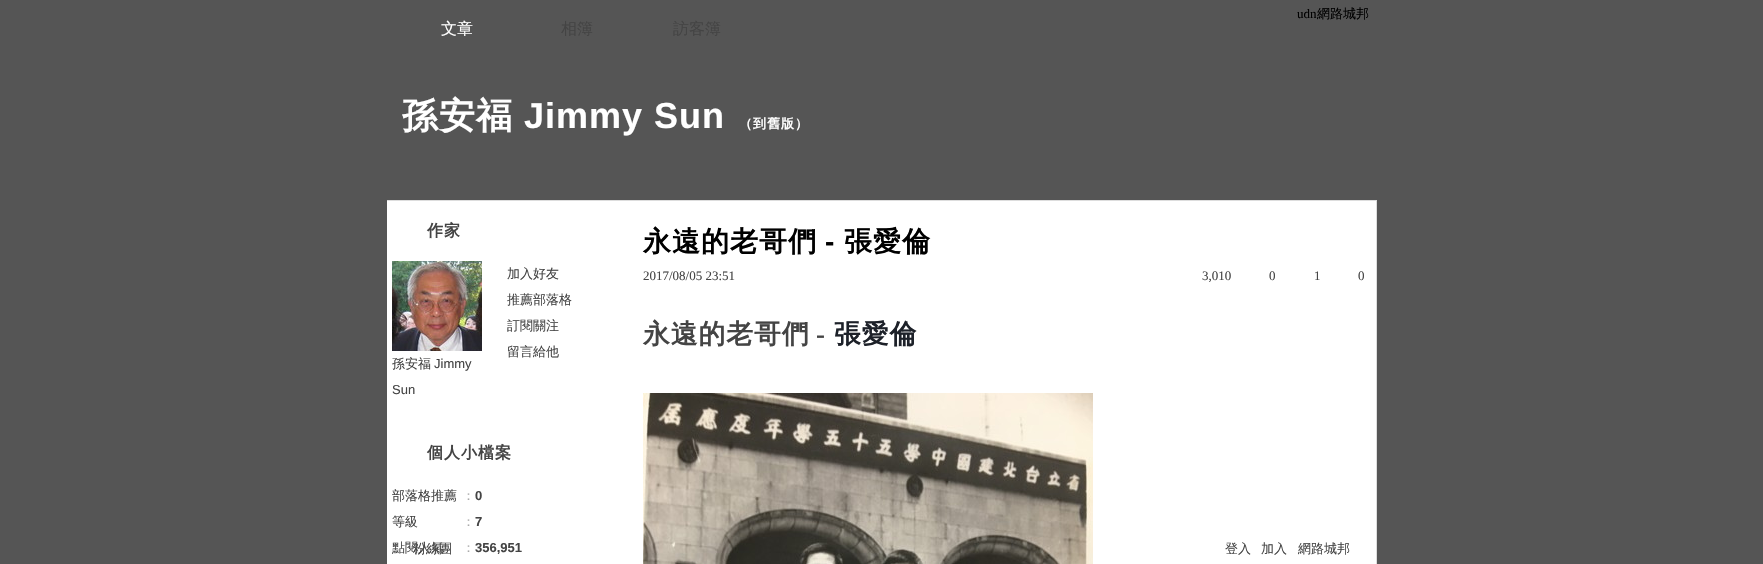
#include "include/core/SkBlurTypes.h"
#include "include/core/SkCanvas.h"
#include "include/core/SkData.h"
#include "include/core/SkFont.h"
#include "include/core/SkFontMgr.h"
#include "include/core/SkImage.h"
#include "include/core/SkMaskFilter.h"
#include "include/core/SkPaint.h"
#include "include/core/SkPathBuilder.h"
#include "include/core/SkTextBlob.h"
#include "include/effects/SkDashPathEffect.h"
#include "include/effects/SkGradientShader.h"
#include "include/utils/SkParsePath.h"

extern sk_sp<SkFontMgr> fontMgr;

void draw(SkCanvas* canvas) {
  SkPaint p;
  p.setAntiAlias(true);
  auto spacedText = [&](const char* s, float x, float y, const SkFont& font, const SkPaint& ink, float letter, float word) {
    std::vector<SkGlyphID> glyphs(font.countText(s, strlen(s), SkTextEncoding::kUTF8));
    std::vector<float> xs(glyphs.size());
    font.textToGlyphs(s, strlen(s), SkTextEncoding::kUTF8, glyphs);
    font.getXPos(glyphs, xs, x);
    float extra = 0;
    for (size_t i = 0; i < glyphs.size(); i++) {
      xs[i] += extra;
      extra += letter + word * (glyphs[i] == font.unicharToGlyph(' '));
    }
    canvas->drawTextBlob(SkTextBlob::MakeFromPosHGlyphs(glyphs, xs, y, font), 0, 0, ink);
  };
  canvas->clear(SkColorSetRGB(85, 85, 85));
  p.setColor(SkColorSetRGB(221, 221, 221));
  canvas->drawRect(SkRect::MakeLTRB(387, 200, 1377, 201), p);
  p.setColor(SK_ColorWHITE);
  canvas->drawRect(SkRect::MakeLTRB(387, 201, 1376, 564), p);
  canvas->drawImageRect(SkImages::DeferredFromEncodedData(SkData::MakeFromFileName("images/1.png")), SkRect::MakeLTRB(392, 261, 482, 351), SkSamplingOptions());
  p.setColor(SkColorSetRGB(221, 221, 221));
  canvas->drawRect(SkRect::MakeLTRB(1376, 201, 1377, 564), p);
  canvas->drawImageRect(SkImages::DeferredFromEncodedData(SkData::MakeFromFileName("images/2.png")), SkRect::MakeLTRB(643, 393, 1093, 564), SkSamplingOptions());
  SkFont font1(fontMgr->matchFamilyStyle("Liberation Serif", SkFontStyle::Normal()), 13);
  font1.setSubpixel(true);
  p.setColor(SK_ColorBLACK);
  canvas->drawString("udn", 1297, 18, font1, p);
  SkFont font2(fontMgr->matchFamilyStyle("WenQuanYi Zen Hei", SkFontStyle(500, SkFontStyle::kNormal_Width, SkFontStyle::kUpright_Slant)), 13);
  font2.setSubpixel(true);
  canvas->drawString("網路城邦", 1317, 18, font2, p);
  SkFont font3(fontMgr->matchFamilyStyle("WenQuanYi Zen Hei", SkFontStyle(500, SkFontStyle::kNormal_Width, SkFontStyle::kUpright_Slant)), 16);
  font3.setSubpixel(true);
  p.setColor(SK_ColorWHITE);
  canvas->drawString("文章", 441, 34, font3, p);
  p.setColor(SkColorSetRGB(68, 68, 68));
  canvas->drawString("相簿", 561, 34, font3, p);
  canvas->drawString("訪客簿", 673, 34, font3, p);
  SkFont font4(fontMgr->matchFamilyStyle("WenQuanYi Zen Hei", SkFontStyle::Bold()), 36);
  font4.setSubpixel(true);
  p.setColor(SK_ColorWHITE);
  spacedText("孫安福", 402, 128, font4, p, 1, 0);
  SkFont font5(fontMgr->matchFamilyStyle("Liberation Sans", SkFontStyle::Bold()), 36);
  font5.setSubpixel(true);
  spacedText("Jimmy Sun", 524, 128, font5, p, 1, 0);
  SkFont font6(fontMgr->matchFamilyStyle("WenQuanYi Zen Hei", SkFontStyle::Bold()), 13);
  font6.setSubpixel(true);
  spacedText("（到舊版）", 739, 128, font6, p, 1, 0);
  SkFont font7(fontMgr->matchFamilyStyle("WenQuanYi Zen Hei", SkFontStyle::Bold()), 16);
  font7.setSubpixel(true);
  p.setColor(SkColorSetRGB(68, 68, 68));
  spacedText("作家", 427, 236, font7, p, 1, 0);
  canvas->drawString("加入好友", 507, 278, font2, p);
  canvas->drawString("推薦部落格", 507, 304, font2, p);
  canvas->drawString("訂閱關注", 507, 330, font2, p);
  canvas->drawString("留言給他", 507, 356, font2, p);
  canvas->drawString("孫安福", 392, 368, font2, p);
  SkFont font8(fontMgr->matchFamilyStyle("Liberation Sans", SkFontStyle::Normal()), 13);
  font8.setSubpixel(true);
  canvas->drawString("Jimmy", 434, 368, font8, p);
  canvas->drawString("Sun", 392, 394, font8, p);
  spacedText("個人小檔案", 427, 458, font7, p, 1, 0);
  canvas->drawString("部落格推薦", 392, 500, font2, p);
  p.setColor(SkColorSetRGB(170, 170, 170));
  canvas->drawString("：", 462, 500, font2, p);
  SkFont font9(fontMgr->matchFamilyStyle("Liberation Sans", SkFontStyle::Bold()), 13);
  font9.setSubpixel(true);
  p.setColor(SkColorSetRGB(68, 68, 68));
  canvas->drawString("0", 475, 500, font9, p);
  canvas->drawString("等級", 392, 526, font2, p);
  p.setColor(SkColorSetRGB(170, 170, 170));
  canvas->drawString("：", 462, 526, font2, p);
  p.setColor(SkColorSetRGB(68, 68, 68));
  canvas->drawString("7", 475, 526, font9, p);
  canvas->drawString("點閱人氣", 392, 552, font2, p);
  p.setColor(SkColorSetRGB(170, 170, 170));
  canvas->drawString("：", 462, 552, font2, p);
  p.setColor(SkColorSetRGB(68, 68, 68));
  canvas->drawString("356,951", 475, 552, font9, p);
  SkFont font10(fontMgr->matchFamilyStyle("WenQuanYi Zen Hei", SkFontStyle::Bold()), 28);
  font10.setSubpixel(true);
  p.setColor(SK_ColorBLACK);
  spacedText("永遠的老哥們", 643, 251, font10, p, 1, 0);
  SkFont font11(fontMgr->matchFamilyStyle("Liberation Sans", SkFontStyle::Bold()), 28);
  font11.setSubpixel(true);
  spacedText("-", 825, 251, font11, p, 1, 0);
  spacedText("張愛倫", 844, 251, font10, p, 1, 0);
  p.setColor(SkColorSetRGB(68, 68, 68));
  canvas->drawString("2017/08/05 23:51", 643, 280, font1, p);
  canvas->drawString("3,010", 1202, 280, font1, p);
  canvas->drawString("0", 1269, 280, font1, p);
  canvas->drawString("1", 1314, 280, font1, p);
  canvas->drawString("0", 1358, 280, font1, p);
  SkFont font12(fontMgr->matchFamilyStyle("WenQuanYi Zen Hei", SkFontStyle::Bold()), 26.75f);
  font12.setSubpixel(true);
  spacedText("永遠的老哥們", 643, 343, font12, p, 1, 0);
  SkFont font13(fontMgr->matchFamilyStyle("Liberation Serif", SkFontStyle::Bold()), 26.75f);
  font13.setSubpixel(true);
  spacedText("-", 816, 343, font13, p, 1, 0);
  p.setColor(SkColorSetRGB(29, 33, 41));
  spacedText("張愛倫", 834, 343, font12, p, 1, 0);
  p.setColor(SkColorSetRGB(68, 68, 68));
  canvas->drawString("粉絲團", 413, 553, font2, p);
  canvas->drawString("登入", 1225, 553, font2, p);
  canvas->drawString("加入", 1261, 553, font2, p);
  canvas->drawString("網路城邦", 1298, 553, font2, p);
}
